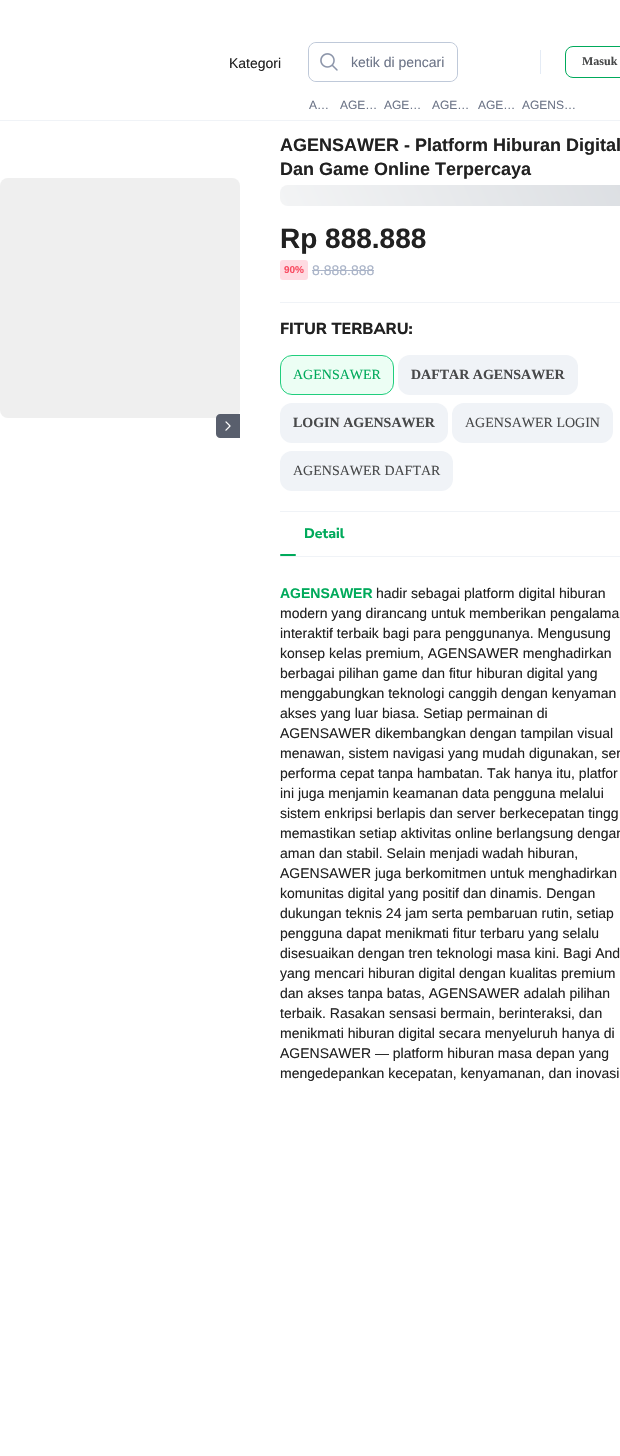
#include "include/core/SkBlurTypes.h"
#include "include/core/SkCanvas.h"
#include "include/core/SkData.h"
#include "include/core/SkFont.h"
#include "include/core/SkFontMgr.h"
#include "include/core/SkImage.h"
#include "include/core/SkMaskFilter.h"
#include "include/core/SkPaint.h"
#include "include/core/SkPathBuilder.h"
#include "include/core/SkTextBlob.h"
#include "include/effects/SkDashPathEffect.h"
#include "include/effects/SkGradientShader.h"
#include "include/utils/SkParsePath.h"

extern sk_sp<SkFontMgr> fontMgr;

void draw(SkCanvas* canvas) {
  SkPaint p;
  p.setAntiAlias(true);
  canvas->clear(SK_ColorWHITE);
  p.setColor(SkColorSetRGB(240, 243, 247));
  canvas->drawRect(SkRect::MakeLTRB(0, 120, 620, 121), p);
  p.setStyle(SkPaint::kStroke_Style);
  p.setStrokeWidth(1);
  p.setColor(SkColorSetRGB(191, 201, 217));
  canvas->drawRoundRect(SkRect::MakeLTRB(308.5f, 42.5f, 457.5f, 81.5f), 7.5f, 7.5f, p);
  p.setStyle(SkPaint::kFill_Style);
  p.setColor(SK_ColorWHITE);
  canvas->drawRoundRect(SkRect::MakeLTRB(309, 43, 457, 81), 8, 8, p);
  canvas->drawImageRect(SkImages::DeferredFromEncodedData(SkData::MakeFromFileName("images/1.png")), SkRect::MakeLTRB(320, 53, 338, 71), SkSamplingOptions());
  p.setColor(SkColorSetRGB(228, 235, 245));
  canvas->drawRect(SkRect::MakeLTRB(540, 50, 541, 74), p);
  p.setStyle(SkPaint::kStroke_Style);
  p.setColor(SkColorSetRGB(0, 170, 91));
  canvas->drawRoundRect(SkRect::MakeLTRB(565.5f, 46.5f, 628.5f, 77.5f), 7.5f, 7.5f, p);
  p.setStyle(SkPaint::kFill_Style);
  p.setColor(SkColorSetRGB(239, 239, 239));
  canvas->drawRoundRect(SkRect::MakeLTRB(0, 178, 240, 418), 8, 8, p);
  p.setColor(SkColorSetARGB(245, 82, 88, 103));
  canvas->drawPath(SkPathBuilder().moveTo(220, 414).lineTo(240, 414).lineTo(240, 438).lineTo(220, 438).cubicTo(218, 438, 216, 436, 216, 434).lineTo(216, 418).cubicTo(216, 416, 218, 414, 220, 414).close().detach(), p);
  canvas->drawImageRect(SkImages::DeferredFromEncodedData(SkData::MakeFromFileName("images/2.png")), SkRect::MakeLTRB(225, 421, 231, 431), SkSamplingOptions());
  {
    const SkColor colors[] = {SkColorSetRGB(243, 244, 245), SkColorSetRGB(219, 222, 226)};
    const float stops[] = {0, 1};
    const SkPoint ends[] = {{308, 266}, {612, 125}};
    p.setShader(SkGradientShader::MakeLinear(ends, colors, stops, 2, SkTileMode::kClamp));
    p.setAlpha(255);
  }
  canvas->drawRoundRect(SkRect::MakeLTRB(280, 185, 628, 206), 8, 8, p);
  p.setShader(nullptr);
  p.setColor(SkColorSetRGB(255, 219, 226));
  canvas->drawRoundRect(SkRect::MakeLTRB(280, 260, 308, 280), 3, 3, p);
  p.setColor(SkColorSetRGB(170, 180, 200));
  canvas->drawRect(SkRect::MakeLTRB(312, 270, 374, 271), p);
  p.setColor(SkColorSetRGB(240, 243, 247));
  canvas->drawRect(SkRect::MakeLTRB(280, 302, 620, 303), p);
  p.setColor(SkColorSetRGB(236, 254, 244));
  canvas->drawRoundRect(SkRect::MakeLTRB(280.5f, 355.5f, 393.5f, 394.5f), 11.5f, 11.5f, p);
  p.setStyle(SkPaint::kStroke_Style);
  p.setColor(SkColorSetRGB(32, 206, 125));
  canvas->drawRoundRect(SkRect::MakeLTRB(280.5f, 355.5f, 393.5f, 394.5f), 11.5f, 11.5f, p);
  p.setStyle(SkPaint::kFill_Style);
  p.setColor(SkColorSetRGB(240, 243, 247));
  canvas->drawRoundRect(SkRect::MakeLTRB(398, 355, 578, 395), 12, 12, p);
  canvas->drawRoundRect(SkRect::MakeLTRB(280, 403, 448, 443), 12, 12, p);
  canvas->drawRoundRect(SkRect::MakeLTRB(452, 403, 613, 443), 12, 12, p);
  canvas->drawRoundRect(SkRect::MakeLTRB(280, 451, 453, 491), 12, 12, p);
  canvas->drawRect(SkRect::MakeLTRB(280, 511, 620, 512), p);
  canvas->drawRect(SkRect::MakeLTRB(280, 556, 620, 557), p);
  p.setColor(SkColorSetRGB(0, 170, 91));
  canvas->drawRoundRect(SkRect::MakeLTRB(280, 554, 296, 556), 1, 1, p);
  SkFont font1(fontMgr->matchFamilyStyle("Liberation Sans", SkFontStyle::Normal()), 14);
  font1.setSubpixel(true);
  p.setColor(SkColorSetRGB(33, 33, 33));
  canvas->drawString("Kategori", 229, 68, font1, p);
  p.setColor(SkColorSetRGB(109, 117, 136));
  canvas->drawString("ketik di pencari", 351, 67, font1, p);
  SkFont font2(fontMgr->matchFamilyStyle("Liberation Serif", SkFontStyle::Bold()), 12);
  font2.setSubpixel(true);
  p.setColor(SkColorSetRGB(72, 73, 74));
  canvas->drawString("Masuk", 582, 65, font2, p);
  SkFont font3(fontMgr->matchFamilyStyle("Liberation Sans", SkFontStyle::Normal()), 12);
  font3.setSubpixel(true);
  p.setColor(SkColorSetRGB(109, 117, 136));
  canvas->drawString("A…", 309, 109, font3, p);
  canvas->drawString("AGE…", 340, 109, font3, p);
  canvas->drawString("AGE…", 384, 109, font3, p);
  canvas->drawString("AGE…", 432, 109, font3, p);
  canvas->drawString("AGE…", 478, 109, font3, p);
  canvas->drawString("AGENS…", 522, 109, font3, p);
  SkFont font4(fontMgr->matchFamilyStyle("Liberation Sans", SkFontStyle::Bold()), 18);
  font4.setSubpixel(true);
  p.setColor(SkColorSetRGB(33, 33, 33));
  canvas->drawString("AGENSAWER - Platform Hiburan Digital", 280, 151, font4, p);
  canvas->drawString("Dan Game Online Terpercaya", 280, 175, font4, p);
  SkFont font5(fontMgr->matchFamilyStyle("Liberation Sans", SkFontStyle::Bold()), 28);
  font5.setSubpixel(true);
  canvas->drawString("Rp 888.888", 280, 248, font5, p);
  SkFont font6(fontMgr->matchFamilyStyle("Liberation Sans", SkFontStyle::Bold()), 10);
  font6.setSubpixel(true);
  p.setColor(SkColorSetRGB(249, 77, 99));
  canvas->drawString("90%", 284, 273, font6, p);
  p.setColor(SkColorSetRGB(170, 180, 200));
  canvas->drawString("8.888.888", 312, 275, font1, p);
  SkFont font7(fontMgr->matchFamilyStyle("Nunito Sans", SkFontStyle(800, SkFontStyle::kNormal_Width, SkFontStyle::kUpright_Slant)), 16);
  font7.setSubpixel(true);
  p.setColor(SkColorSetRGB(33, 33, 33));
  canvas->drawString("FITUR TERBARU:", 280, 334, font7, p);
  SkFont font8(fontMgr->matchFamilyStyle("Liberation Serif", SkFontStyle::Normal()), 14);
  font8.setSubpixel(true);
  p.setColor(SkColorSetRGB(0, 170, 91));
  canvas->drawString("AGENSAWER", 293, 379, font8, p);
  SkFont font9(fontMgr->matchFamilyStyle("Liberation Serif", SkFontStyle::Bold()), 14);
  font9.setSubpixel(true);
  p.setColor(SkColorSetRGB(72, 73, 74));
  canvas->drawString("DAFTAR AGENSAWER", 411, 379, font9, p);
  canvas->drawString("LOGIN AGENSAWER", 293, 427, font9, p);
  canvas->drawString("AGENSAWER LOGIN", 465, 427, font8, p);
  canvas->drawString("AGENSAWER DAFTAR", 293, 475, font8, p);
  SkFont font10(fontMgr->matchFamilyStyle("Nunito Sans", SkFontStyle(800, SkFontStyle::kNormal_Width, SkFontStyle::kUpright_Slant)), 14);
  font10.setSubpixel(true);
  p.setColor(SkColorSetRGB(0, 170, 91));
  canvas->drawString("Detail", 304, 538, font10, p);
  SkFont font11(fontMgr->matchFamilyStyle("Liberation Sans", SkFontStyle::Bold()), 14);
  font11.setSubpixel(true);
  canvas->drawString("AGENSAWER", 280, 598, font11, p);
  p.setColor(SkColorSetRGB(33, 33, 33));
  canvas->drawString("hadir sebagai platform digital hiburan", 376, 598, font1, p);
  canvas->drawString("modern yang dirancang untuk memberikan pengalama", 280, 618, font1, p);
  canvas->drawString("interaktif terbaik bagi para penggunanya. Mengusung", 280, 638, font1, p);
  canvas->drawString("konsep kelas premium, AGENSAWER menghadirkan", 280, 658, font1, p);
  canvas->drawString("berbagai pilihan game dan fitur hiburan digital yang", 280, 678, font1, p);
  canvas->drawString("menggabungkan teknologi canggih dengan kenyaman", 280, 698, font1, p);
  canvas->drawString("akses yang luar biasa. Setiap permainan di", 280, 718, font1, p);
  canvas->drawString("AGENSAWER dikembangkan dengan tampilan visual", 280, 738, font1, p);
  canvas->drawString("menawan, sistem navigasi yang mudah digunakan, ser", 280, 758, font1, p);
  canvas->drawString("performa cepat tanpa hambatan. Tak hanya itu, platfor", 280, 778, font1, p);
  canvas->drawString("ini juga menjamin keamanan data pengguna melalui", 280, 798, font1, p);
  canvas->drawString("sistem enkripsi berlapis dan server berkecepatan tingg", 280, 818, font1, p);
  canvas->drawString("memastikan setiap aktivitas online berlangsung dengan", 280, 838, font1, p);
  canvas->drawString("aman dan stabil. Selain menjadi wadah hiburan,", 280, 858, font1, p);
  canvas->drawString("AGENSAWER juga berkomitmen untuk menghadirkan", 280, 878, font1, p);
  canvas->drawString("komunitas digital yang positif dan dinamis. Dengan", 280, 898, font1, p);
  canvas->drawString("dukungan teknis 24 jam serta pembaruan rutin, setiap", 280, 918, font1, p);
  canvas->drawString("pengguna dapat menikmati fitur terbaru yang selalu", 280, 938, font1, p);
  canvas->drawString("disesuaikan dengan tren teknologi masa kini. Bagi And", 280, 958, font1, p);
  canvas->drawString("yang mencari hiburan digital dengan kualitas premium", 280, 978, font1, p);
  canvas->drawString("dan akses tanpa batas, AGENSAWER adalah pilihan", 280, 998, font1, p);
  canvas->drawString("terbaik. Rasakan sensasi bermain, berinteraksi, dan", 280, 1018, font1, p);
  canvas->drawString("menikmati hiburan digital secara menyeluruh hanya di", 280, 1038, font1, p);
  canvas->drawString("AGENSAWER — platform hiburan masa depan yang", 280, 1058, font1, p);
  canvas->drawString("mengedepankan kecepatan, kenyamanan, dan inovasi", 280, 1078, font1, p);
}
